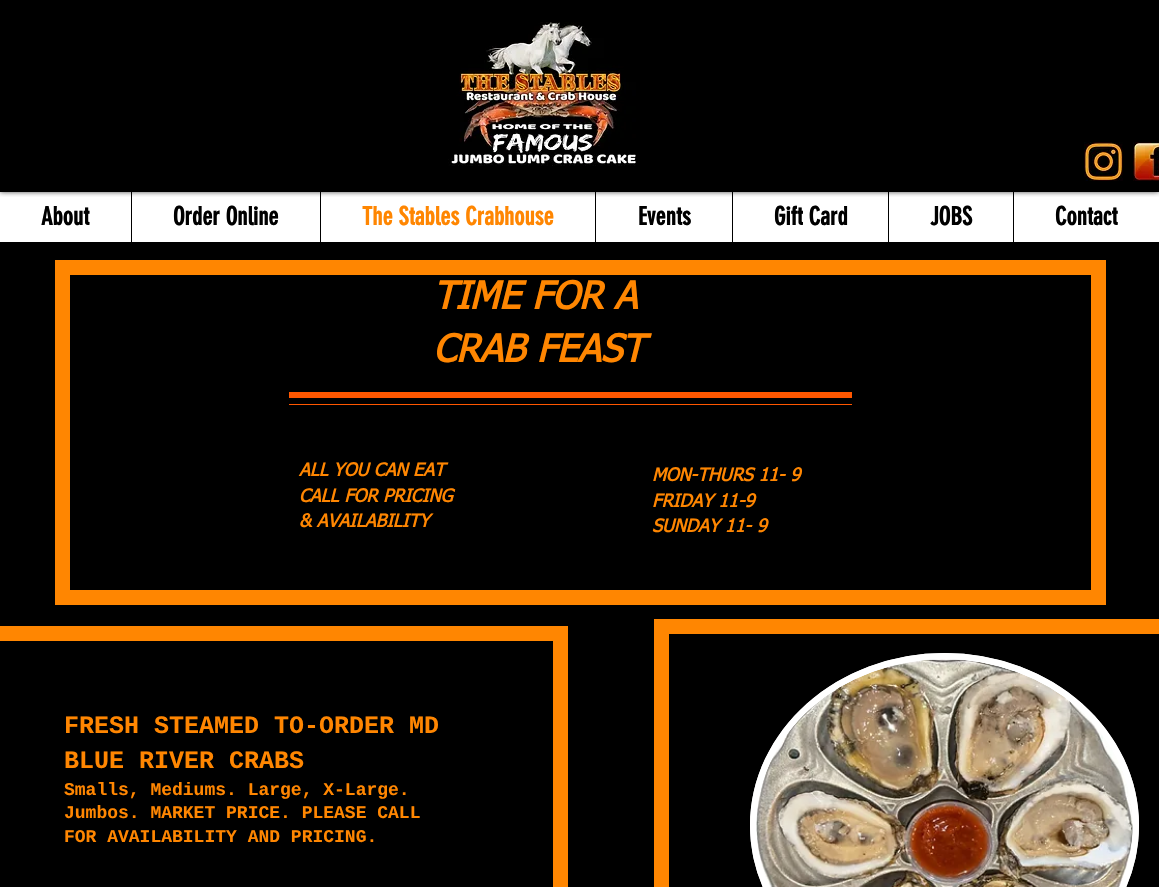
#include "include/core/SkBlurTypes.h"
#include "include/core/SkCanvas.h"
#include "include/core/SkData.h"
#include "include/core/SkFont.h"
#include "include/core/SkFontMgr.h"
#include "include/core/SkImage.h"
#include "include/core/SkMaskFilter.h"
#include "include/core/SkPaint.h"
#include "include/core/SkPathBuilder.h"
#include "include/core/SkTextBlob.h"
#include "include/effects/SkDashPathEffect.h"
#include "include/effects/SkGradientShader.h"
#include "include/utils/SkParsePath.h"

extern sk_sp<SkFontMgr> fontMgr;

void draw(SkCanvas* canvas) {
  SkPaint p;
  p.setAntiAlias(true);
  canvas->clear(SK_ColorBLACK);
  p.setColor(SK_ColorWHITE);
  canvas->drawRect(SkRect::MakeLTRB(0, 192, 1159, 242), p);
  p.setColor(SK_ColorBLACK);
  canvas->drawRect(SkRect::MakeLTRB(131, 192, 132, 242), p);
  canvas->drawRect(SkRect::MakeLTRB(320, 192, 321, 242), p);
  canvas->drawRect(SkRect::MakeLTRB(595, 192, 596, 242), p);
  canvas->drawRect(SkRect::MakeLTRB(732, 192, 733, 242), p);
  canvas->drawRect(SkRect::MakeLTRB(888, 192, 889, 242), p);
  canvas->drawRect(SkRect::MakeLTRB(1013, 192, 1014, 242), p);
  canvas->save();
  canvas->clipRect(SkRect::MakeLTRB(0, 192, 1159, 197));
  p.setColor(SkColorSetARGB(179, 0, 0, 0));
  p.setMaskFilter(SkMaskFilter::MakeBlur(kNormal_SkBlurStyle, 2.5f));
  canvas->drawRect(SkRect::MakeLTRB(0, 0, 1159, 192), p);
  p.setMaskFilter(nullptr);
  canvas->restore();
  canvas->drawImageRect(SkImages::DeferredFromEncodedData(SkData::MakeFromFileName("images/1.png")), SkRect::MakeLTRB(448, 22, 636, 166), SkSamplingOptions());
  canvas->drawImageRect(SkImages::DeferredFromEncodedData(SkData::MakeFromFileName("images/2.png")), SkRect::MakeLTRB(1084, 142, 1123, 181), SkSamplingOptions());
  canvas->drawImageRect(SkImages::DeferredFromEncodedData(SkData::MakeFromFileName("images/3.png")), SkRect::MakeLTRB(1133, 142, 1159, 181), SkSamplingOptions());
  p.setStyle(SkPaint::kStroke_Style);
  p.setStrokeWidth(15);
  p.setColor(SkColorSetRGB(255, 134, 1));
  canvas->drawRect(SkRect::MakeLTRB(62.5f, 267.5f, 1098.5f, 597.5f), p);
  p.setStyle(SkPaint::kFill_Style);
  p.setColor(SkColorSetRGB(255, 87, 0));
  canvas->drawRect(SkRect::MakeLTRB(289, 392, 852, 398), p);
  canvas->drawRect(SkRect::MakeLTRB(289, 404, 852, 405), p);
  p.setStyle(SkPaint::kStroke_Style);
  p.setColor(SkColorSetRGB(255, 134, 1));
  canvas->drawRect(SkRect::MakeLTRB(-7.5f, 633.5f, 560.5f, 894.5f), p);
  canvas->drawRect(SkRect::MakeLTRB(661.5f, 626.5f, 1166.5f, 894.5f), p);
  p.setStyle(SkPaint::kFill_Style);
  p.setColor(SK_ColorWHITE);
  canvas->drawOval(SkRect::MakeLTRB(750, 653, 1139, 998), p);
  p.setStyle(SkPaint::kStroke_Style);
  p.setStrokeWidth(6);
  canvas->drawPath(SkPathBuilder().moveTo(944.5f, 656).cubicTo(1050.5f, 656, 1136, 732, 1136, 825.5f).cubicTo(1136, 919, 1050.5f, 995, 944.5f, 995).cubicTo(838.5f, 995, 753, 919, 753, 825.5f).cubicTo(753, 732, 838.5f, 656, 944.5f, 656).close().detach(), p);
  canvas->drawImageRect(SkImages::DeferredFromEncodedData(SkData::MakeFromFileName("images/4.png")), SkRect::MakeLTRB(756, 659, 1133, 887), SkSamplingOptions());
  SkFont font1(fontMgr->matchFamilyStyle("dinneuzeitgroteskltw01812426", SkFontStyle::Bold()), 25);
  font1.setSubpixel(true);
  p.setStyle(SkPaint::kFill_Style);
  p.setColor(SK_ColorBLACK);
  canvas->drawString("About", 41, 225, font1, p);
  canvas->drawString("Order Online", 173, 225, font1, p);
  p.setColor(SkColorSetRGB(255, 134, 1));
  canvas->drawString("The Stables Crabhouse", 362, 225, font1, p);
  p.setColor(SK_ColorBLACK);
  canvas->drawString("Events", 638, 225, font1, p);
  canvas->drawString("Gift Card", 774, 225, font1, p);
  canvas->drawString("JOBS", 930, 225, font1, p);
  canvas->drawString("Contact", 1055, 225, font1, p);
  SkFont font2(fontMgr->matchFamilyStyle("tahoma", SkFontStyle::BoldItalic()), 38);
  font2.setSubpixel(true);
  p.setColor(SkColorSetRGB(255, 134, 1));
  canvas->drawString("TIME FOR A", 433, 309, font2, p);
  canvas->drawString("CRAB FEAST", 433, 362, font2, p);
  SkFont font3(fontMgr->matchFamilyStyle("tahoma", SkFontStyle::BoldItalic()), 18);
  font3.setSubpixel(true);
  canvas->drawString("ALL YOU CAN EAT", 299, 476, font3, p);
  canvas->drawString("CALL FOR PRICING", 299, 502, font3, p);
  canvas->drawString("& AVAILABILITY", 299, 527, font3, p);
  canvas->drawString("MON-THURS 11- 9", 652, 481, font3, p);
  canvas->drawString("FRIDAY 11-9", 652, 507, font3, p);
  canvas->drawString("SUNDAY 11- 9", 652, 532, font3, p);
  SkFont font4(fontMgr->matchFamilyStyle("Liberation Mono", SkFontStyle::Bold()), 25);
  font4.setSubpixel(true);
  canvas->drawString("FRESH STEAMED TO-ORDER MD", 64, 733, font4, p);
  canvas->drawString("BLUE RIVER CRABS", 64, 768, font4, p);
  SkFont font5(fontMgr->matchFamilyStyle("Liberation Mono", SkFontStyle::Bold()), 18);
  font5.setSubpixel(true);
  canvas->drawString("Smalls, Mediums. Large, X-Large.", 64, 795, font5, p);
  canvas->drawString("Jumbos. MARKET PRICE. PLEASE CALL", 64, 818, font5, p);
  canvas->drawString("FOR AVAILABILITY AND PRICING.", 64, 842, font5, p);
}
